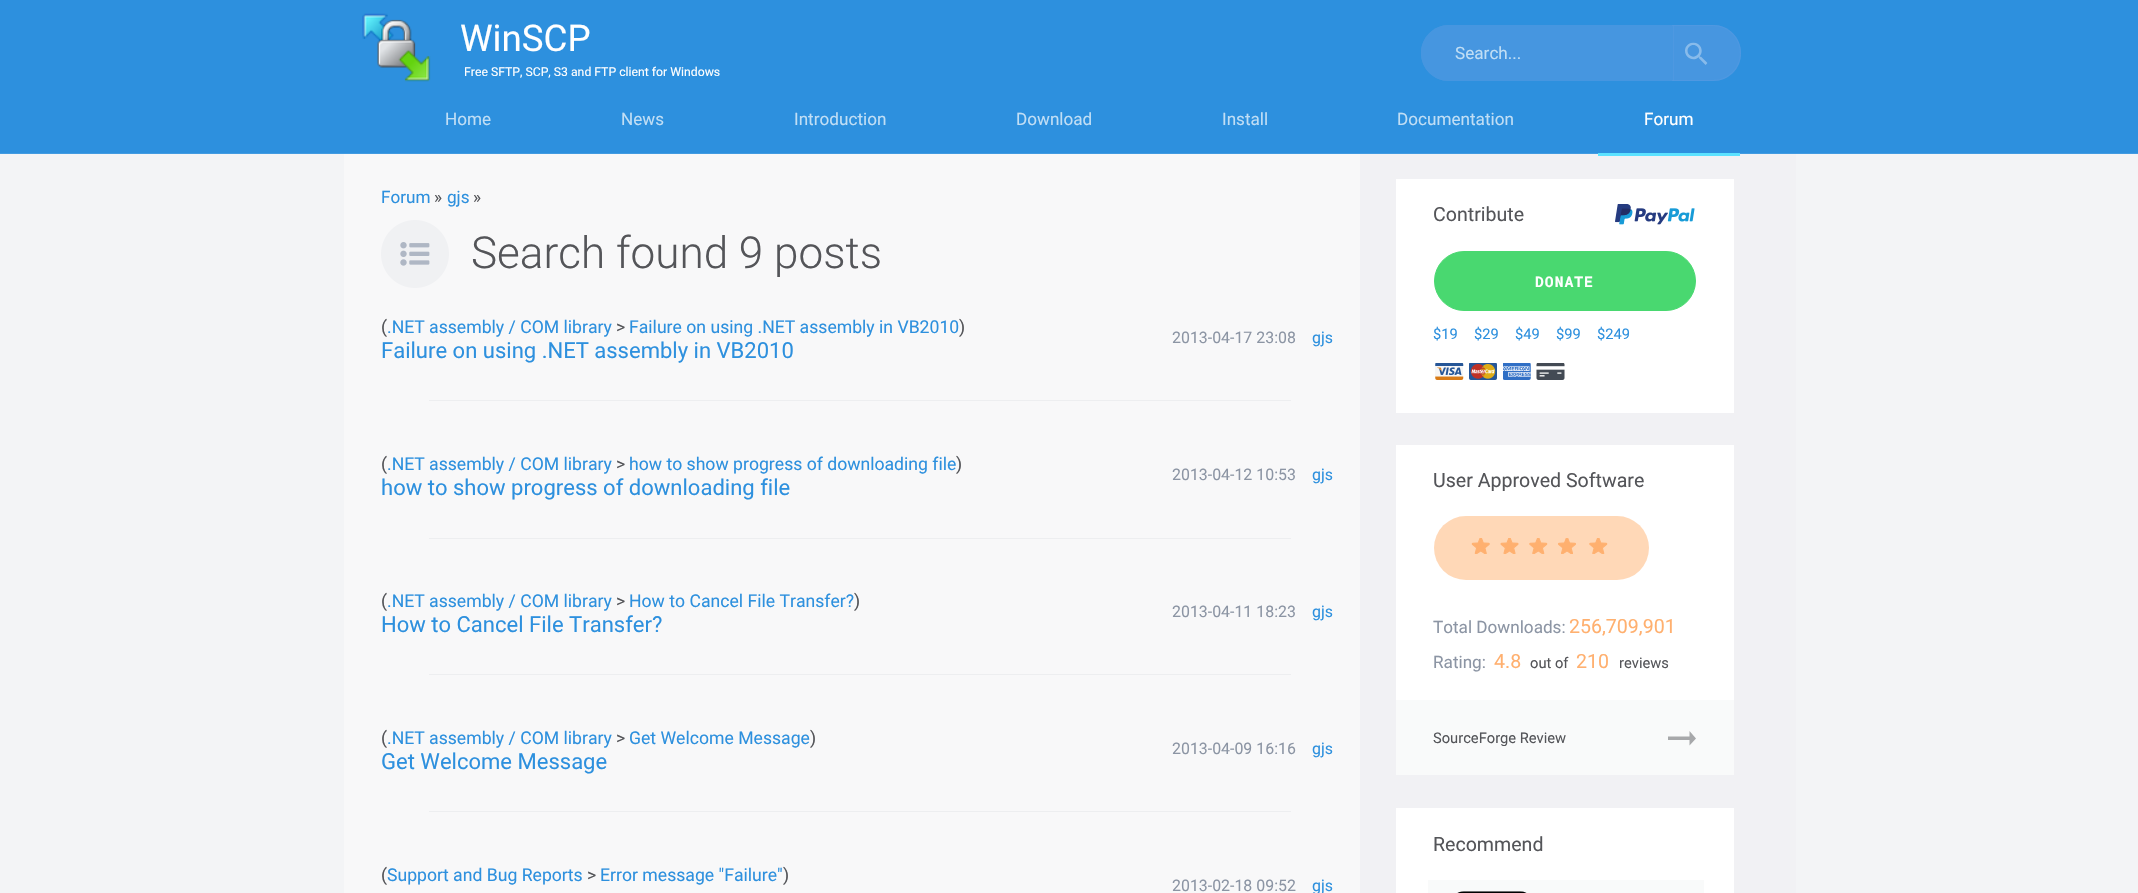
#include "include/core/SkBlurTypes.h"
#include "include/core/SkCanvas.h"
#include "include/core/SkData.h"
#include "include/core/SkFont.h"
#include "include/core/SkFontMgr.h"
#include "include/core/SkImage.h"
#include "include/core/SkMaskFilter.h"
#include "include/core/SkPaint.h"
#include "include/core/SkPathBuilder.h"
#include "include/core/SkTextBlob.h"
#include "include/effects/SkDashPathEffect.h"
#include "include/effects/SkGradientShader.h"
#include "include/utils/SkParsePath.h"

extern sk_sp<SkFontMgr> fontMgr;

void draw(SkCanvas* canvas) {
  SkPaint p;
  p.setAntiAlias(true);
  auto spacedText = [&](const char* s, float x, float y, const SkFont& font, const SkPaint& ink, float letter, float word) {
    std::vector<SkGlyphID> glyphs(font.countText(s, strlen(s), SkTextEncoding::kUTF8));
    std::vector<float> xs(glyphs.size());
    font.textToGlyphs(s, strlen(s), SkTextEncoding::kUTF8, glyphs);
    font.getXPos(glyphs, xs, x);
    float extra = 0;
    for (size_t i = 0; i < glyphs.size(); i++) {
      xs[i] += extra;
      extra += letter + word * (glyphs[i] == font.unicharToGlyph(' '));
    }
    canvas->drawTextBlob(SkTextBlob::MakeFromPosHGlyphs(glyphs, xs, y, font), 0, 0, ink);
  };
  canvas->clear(SkColorSetRGB(243, 244, 246));
  p.setColor(SkColorSetRGB(45, 144, 222));
  canvas->drawRect(SkRect::MakeLTRB(0, 0, 2138, 153), p);
  p.setColor(SkColorSetRGB(66, 155, 225));
  canvas->drawRect(SkRect::MakeLTRB(0, 153, 2138, 154), p);
  canvas->drawImageRect(SkImages::DeferredFromEncodedData(SkData::MakeFromFileName("images/1.png")), SkRect::MakeLTRB(362, 13, 431, 82), SkSamplingOptions());
  p.setColor(SkColorSetRGB(70, 150, 224));
  canvas->drawPath(SkPathBuilder().moveTo(1449, 25).lineTo(1674, 25).lineTo(1674, 81).lineTo(1449, 81).cubicTo(1433.5f, 81, 1421, 68.5f, 1421, 53).cubicTo(1421, 37.5f, 1433.5f, 25, 1449, 25).close().detach(), p);
  canvas->drawPath(SkPathBuilder(SkPathFillType::kEvenOdd).moveTo(1449, 25).lineTo(1674, 25).lineTo(1674, 81).lineTo(1449, 81).cubicTo(1434, 81, 1421, 69, 1421, 53).cubicTo(1421, 38, 1434, 25, 1449, 25).close().moveTo(1449, 26).lineTo(1674, 26).lineTo(1674, 80).lineTo(1449, 80).cubicTo(1435, 80, 1422, 68, 1422, 53).cubicTo(1422, 38, 1435, 26, 1449, 26).close().detach(), p);
  p.setColor(SkColorSetARGB(179, 81, 153, 225));
  canvas->drawPath(SkPathBuilder().moveTo(1673, 25).lineTo(1713, 25).cubicTo(1728.5f, 25, 1741, 37.5f, 1741, 53).cubicTo(1741, 68.5f, 1728.5f, 81, 1713, 81).lineTo(1673, 81).close().detach(), p);
  canvas->drawPath(SkPathBuilder(SkPathFillType::kEvenOdd).moveTo(1672, 25).lineTo(1713, 25).cubicTo(1729, 25, 1741, 38, 1741, 53).cubicTo(1741, 69, 1729, 81, 1713, 81).lineTo(1672, 81).close().moveTo(1672, 26).lineTo(1713, 26).cubicTo(1728, 26, 1740, 38, 1740, 53).cubicTo(1740, 68, 1728, 80, 1713, 80).lineTo(1672, 80).close().detach(), p);
  canvas->drawImageRect(SkImages::DeferredFromEncodedData(SkData::MakeFromFileName("images/2.png")), SkRect::MakeLTRB(1685, 42, 1708, 65), SkSamplingOptions());
  {
    const SkColor colors[] = {SkColorSetRGB(248, 248, 249), SkColorSetRGB(248, 248, 249), SkColorSetRGB(241, 241, 244), SkColorSetRGB(241, 241, 244)};
    const float stops[] = {0, 0.7f, 0.7f, 1};
    const SkPoint ends[] = {{344, 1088}, {1796, 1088}};
    p.setShader(SkGradientShader::MakeLinear(ends, colors, stops, 4, SkTileMode::kClamp));
    p.setAlpha(255);
  }
  canvas->drawRect(SkRect::MakeLTRB(344, 154, 1796, 893), p);
  p.setShader(nullptr);
  p.setColor(SkColorSetRGB(91, 226, 255));
  canvas->drawRect(SkRect::MakeLTRB(1598, 153, 1740, 156), p);
  canvas->drawImageRect(SkImages::DeferredFromEncodedData(SkData::MakeFromFileName("images/3.png")), SkRect::MakeLTRB(381, 220, 449, 288), SkSamplingOptions());
  p.setColor(SkColorSetRGB(237, 238, 240));
  canvas->drawRect(SkRect::MakeLTRB(429, 400, 1291, 401), p);
  canvas->drawRect(SkRect::MakeLTRB(429, 538, 1291, 539), p);
  canvas->drawRect(SkRect::MakeLTRB(429, 674, 1291, 675), p);
  canvas->drawRect(SkRect::MakeLTRB(429, 811, 1291, 812), p);
  p.setColor(SK_ColorWHITE);
  canvas->drawRect(SkRect::MakeLTRB(1396, 179, 1734, 413), p);
  canvas->drawImageRect(SkImages::DeferredFromEncodedData(SkData::MakeFromFileName("images/4.png")), SkRect::MakeLTRB(1615, 204, 1695, 225), SkSamplingOptions());
  p.setColor(SkColorSetRGB(73, 216, 112));
  canvas->drawRoundRect(SkRect::MakeLTRB(1434.5f, 251.5f, 1695.5f, 310.5f), 29.5f, 29.5f, p);
  p.setStyle(SkPaint::kStroke_Style);
  p.setStrokeWidth(1);
  canvas->drawRoundRect(SkRect::MakeLTRB(1434.5f, 251.5f, 1695.5f, 310.5f), 29.5f, 29.5f, p);
  canvas->drawImageRect(SkImages::DeferredFromEncodedData(SkData::MakeFromFileName("images/5.png")), SkRect::MakeLTRB(1435, 363, 1464, 380), SkSamplingOptions());
  canvas->drawImageRect(SkImages::DeferredFromEncodedData(SkData::MakeFromFileName("images/6.png")), SkRect::MakeLTRB(1469, 363, 1497, 380), SkSamplingOptions());
  canvas->drawImageRect(SkImages::DeferredFromEncodedData(SkData::MakeFromFileName("images/7.png")), SkRect::MakeLTRB(1503, 363, 1531, 380), SkSamplingOptions());
  canvas->drawImageRect(SkImages::DeferredFromEncodedData(SkData::MakeFromFileName("images/8.png")), SkRect::MakeLTRB(1536, 363, 1565, 380), SkSamplingOptions());
  p.setStyle(SkPaint::kFill_Style);
  p.setColor(SK_ColorWHITE);
  canvas->drawRect(SkRect::MakeLTRB(1396, 445, 1734, 700), p);
  p.setColor(SkColorSetRGB(255, 216, 183));
  canvas->drawRoundRect(SkRect::MakeLTRB(1434, 516, 1649, 580), 32, 32, p);
  canvas->drawImageRect(SkImages::DeferredFromEncodedData(SkData::MakeFromFileName("images/9.png")), SkRect::MakeLTRB(1471, 538, 1608, 554), SkSamplingOptions());
  p.setColor(SkColorSetRGB(249, 250, 250));
  canvas->drawRect(SkRect::MakeLTRB(1396, 700, 1734, 775), p);
  canvas->save();
  canvas->clipRect(SkRect::MakeLTRB(1668, 731, 1696, 746));
  p.setColor(SkColorSetRGB(167, 168, 170));
  canvas->drawPath(SkPathBuilder(SkPathFillType::kEvenOdd).moveTo(1667.5f, 736.5f).lineTo(1667.5f, 740).lineTo(1689.5f, 740).lineTo(1689.5f, 745.5f).lineTo(1696, 738.5f).lineTo(1689.5f, 731).lineTo(1689.5f, 736.5f).close().detach(), p);
  canvas->restore();
  p.setColor(SK_ColorWHITE);
  canvas->drawRect(SkRect::MakeLTRB(1396, 808, 1734, 893), p);
  p.setColor(SkColorSetRGB(249, 250, 250));
  canvas->drawRect(SkRect::MakeLTRB(1428, 880, 1704, 893), p);
  canvas->drawImageRect(SkImages::DeferredFromEncodedData(SkData::MakeFromFileName("images/10.png")), SkRect::MakeLTRB(1457, 891, 1527, 893), SkSamplingOptions());
  SkFont font1(fontMgr->matchFamilyStyle("Roboto", SkFontStyle::Normal()), 37.5f);
  font1.setSubpixel(true);
  p.setColor(SK_ColorWHITE);
  canvas->drawString("WinSCP", 460, 51, font1, p);
  SkFont font2(fontMgr->matchFamilyStyle("Roboto", SkFontStyle::Normal()), 12.5f);
  font2.setSubpixel(true);
  canvas->drawString("Free SFTP, SCP, S3 and FTP client for Windows", 464, 76, font2, p);
  SkFont font3(fontMgr->matchFamilyStyle("Roboto", SkFontStyle::Normal()), 17.5f);
  font3.setSubpixel(true);
  p.setColor(SkColorSetRGB(192, 222, 245));
  canvas->drawString("Search...", 1455, 59, font3, p);
  canvas->drawString("Home", 445, 125, font3, p);
  canvas->drawString("News", 621, 125, font3, p);
  canvas->drawString("Introduction", 794, 125, font3, p);
  canvas->drawString("Download", 1016, 125, font3, p);
  canvas->drawString("Install", 1222, 125, font3, p);
  canvas->drawString("Documentation", 1397, 125, font3, p);
  p.setColor(SK_ColorWHITE);
  canvas->drawString("Forum", 1644, 125, font3, p);
  p.setColor(SkColorSetRGB(45, 144, 222));
  canvas->drawString("Forum", 381, 203, font3, p);
  p.setColor(SkColorSetRGB(84, 85, 89));
  canvas->drawString("»", 434, 203, font3, p);
  p.setColor(SkColorSetRGB(45, 144, 222));
  canvas->drawString("gjs", 447, 203, font3, p);
  p.setColor(SkColorSetRGB(84, 85, 89));
  canvas->drawString("»", 473, 203, font3, p);
  SkFont font4(fontMgr->matchFamilyStyle("Roboto", SkFontStyle(300, SkFontStyle::kNormal_Width, SkFontStyle::kUpright_Slant)), 45);
  font4.setSubpixel(true);
  canvas->drawString("Search found 9 posts", 471, 268, font4, p);
  SkFont font5(fontMgr->matchFamilyStyle("Roboto", SkFontStyle::Normal()), 18);
  font5.setSubpixel(true);
  canvas->drawString("(", 381, 333, font5, p);
  p.setColor(SkColorSetRGB(45, 144, 222));
  canvas->drawString(".NET assembly / COM library", 387, 333, font5, p);
  p.setColor(SkColorSetRGB(84, 85, 89));
  canvas->drawString(">", 616, 333, font5, p);
  p.setColor(SkColorSetRGB(45, 144, 222));
  canvas->drawString("Failure on using .NET assembly in VB2010", 629, 333, font5, p);
  p.setColor(SkColorSetRGB(84, 85, 89));
  canvas->drawString(")", 959, 333, font5, p);
  SkFont font6(fontMgr->matchFamilyStyle("Roboto", SkFontStyle::Normal()), 22.5f);
  font6.setSubpixel(true);
  p.setColor(SkColorSetRGB(45, 144, 222));
  canvas->drawString("Failure on using .NET assembly in VB2010", 381, 358, font6, p);
  SkFont font7(fontMgr->matchFamilyStyle("Roboto", SkFontStyle::Normal()), 16.25f);
  font7.setSubpixel(true);
  p.setColor(SkColorSetRGB(140, 149, 164));
  canvas->drawString("2013-04-17 23:08", 1172, 343, font7, p);
  p.setColor(SkColorSetRGB(45, 144, 222));
  canvas->drawString("gjs", 1312, 343, font7, p);
  p.setColor(SkColorSetRGB(84, 85, 89));
  canvas->drawString("(", 381, 470, font5, p);
  p.setColor(SkColorSetRGB(45, 144, 222));
  canvas->drawString(".NET assembly / COM library", 387, 470, font5, p);
  p.setColor(SkColorSetRGB(84, 85, 89));
  canvas->drawString(">", 616, 470, font5, p);
  p.setColor(SkColorSetRGB(45, 144, 222));
  canvas->drawString("how to show progress of downloading file", 629, 470, font5, p);
  p.setColor(SkColorSetRGB(84, 85, 89));
  canvas->drawString(")", 956, 470, font5, p);
  p.setColor(SkColorSetRGB(45, 144, 222));
  canvas->drawString("how to show progress of downloading file", 381, 495, font6, p);
  p.setColor(SkColorSetRGB(140, 149, 164));
  canvas->drawString("2013-04-12 10:53", 1172, 480, font7, p);
  p.setColor(SkColorSetRGB(45, 144, 222));
  canvas->drawString("gjs", 1312, 480, font7, p);
  p.setColor(SkColorSetRGB(84, 85, 89));
  canvas->drawString("(", 381, 607, font5, p);
  p.setColor(SkColorSetRGB(45, 144, 222));
  canvas->drawString(".NET assembly / COM library", 387, 607, font5, p);
  p.setColor(SkColorSetRGB(84, 85, 89));
  canvas->drawString(">", 616, 607, font5, p);
  p.setColor(SkColorSetRGB(45, 144, 222));
  canvas->drawString("How to Cancel File Transfer?", 629, 607, font5, p);
  p.setColor(SkColorSetRGB(84, 85, 89));
  canvas->drawString(")", 854, 607, font5, p);
  p.setColor(SkColorSetRGB(45, 144, 222));
  canvas->drawString("How to Cancel File Transfer?", 381, 632, font6, p);
  p.setColor(SkColorSetRGB(140, 149, 164));
  canvas->drawString("2013-04-11 18:23", 1172, 617, font7, p);
  p.setColor(SkColorSetRGB(45, 144, 222));
  canvas->drawString("gjs", 1312, 617, font7, p);
  p.setColor(SkColorSetRGB(84, 85, 89));
  canvas->drawString("(", 381, 744, font5, p);
  p.setColor(SkColorSetRGB(45, 144, 222));
  canvas->drawString(".NET assembly / COM library", 387, 744, font5, p);
  p.setColor(SkColorSetRGB(84, 85, 89));
  canvas->drawString(">", 616, 744, font5, p);
  p.setColor(SkColorSetRGB(45, 144, 222));
  canvas->drawString("Get Welcome Message", 629, 744, font5, p);
  p.setColor(SkColorSetRGB(84, 85, 89));
  canvas->drawString(")", 810, 744, font5, p);
  p.setColor(SkColorSetRGB(45, 144, 222));
  canvas->drawString("Get Welcome Message", 381, 769, font6, p);
  p.setColor(SkColorSetRGB(140, 149, 164));
  canvas->drawString("2013-04-09 16:16", 1172, 754, font7, p);
  p.setColor(SkColorSetRGB(45, 144, 222));
  canvas->drawString("gjs", 1312, 754, font7, p);
  p.setColor(SkColorSetRGB(84, 85, 89));
  canvas->drawString("(", 381, 881, font5, p);
  p.setColor(SkColorSetRGB(45, 144, 222));
  canvas->drawString("Support and Bug Reports", 387, 881, font5, p);
  p.setColor(SkColorSetRGB(84, 85, 89));
  canvas->drawString(">", 587, 881, font5, p);
  p.setColor(SkColorSetRGB(45, 144, 222));
  canvas->drawString("Error message \"Failure\"", 600, 881, font5, p);
  p.setColor(SkColorSetRGB(84, 85, 89));
  canvas->drawString(")", 783, 881, font5, p);
  p.setColor(SkColorSetRGB(140, 149, 164));
  canvas->drawString("2013-02-18 09:52", 1172, 891, font7, p);
  p.setColor(SkColorSetRGB(45, 144, 222));
  canvas->drawString("gjs", 1312, 891, font7, p);
  SkFont font8(fontMgr->matchFamilyStyle("Roboto", SkFontStyle::Normal()), 20);
  font8.setSubpixel(true);
  p.setColor(SkColorSetRGB(84, 85, 89));
  canvas->drawString("Contribute", 1433, 221, font8, p);
  SkFont font9(fontMgr->matchFamilyStyle("Roboto Mono", SkFontStyle::Bold()), 15);
  font9.setSubpixel(true);
  p.setColor(SK_ColorWHITE);
  spacedText("DONATE", 1535, 287, font9, p, 1, 0);
  SkFont font10(fontMgr->matchFamilyStyle("Roboto", SkFontStyle::Normal()), 15);
  font10.setSubpixel(true);
  p.setColor(SkColorSetRGB(45, 144, 222));
  canvas->drawString("$19", 1433, 339, font10, p);
  canvas->drawString("$29", 1474, 339, font10, p);
  canvas->drawString("$49", 1515, 339, font10, p);
  canvas->drawString("$99", 1556, 339, font10, p);
  canvas->drawString("$249", 1597, 339, font10, p);
  p.setColor(SkColorSetRGB(84, 85, 89));
  canvas->drawString("User Approved Software", 1433, 487, font8, p);
  p.setColor(SkColorSetRGB(140, 149, 164));
  canvas->drawString("Total Downloads:", 1433, 633, font3, p);
  p.setColor(SkColorSetRGB(255, 176, 111));
  canvas->drawString("256,709,901", 1569, 633, font8, p);
  p.setColor(SkColorSetRGB(140, 149, 164));
  canvas->drawString("Rating:", 1433, 668, font3, p);
  p.setColor(SkColorSetRGB(255, 176, 111));
  canvas->drawString("4.8", 1494, 668, font8, p);
  p.setColor(SkColorSetRGB(84, 85, 89));
  canvas->drawString("out of", 1530, 668, font10, p);
  p.setColor(SkColorSetRGB(255, 176, 111));
  canvas->drawString("210", 1576, 668, font8, p);
  p.setColor(SkColorSetRGB(84, 85, 89));
  canvas->drawString("reviews", 1619, 668, font10, p);
  canvas->drawString("SourceForge Review", 1433, 743, font10, p);
  canvas->drawString("Recommend", 1433, 851, font8, p);
}
